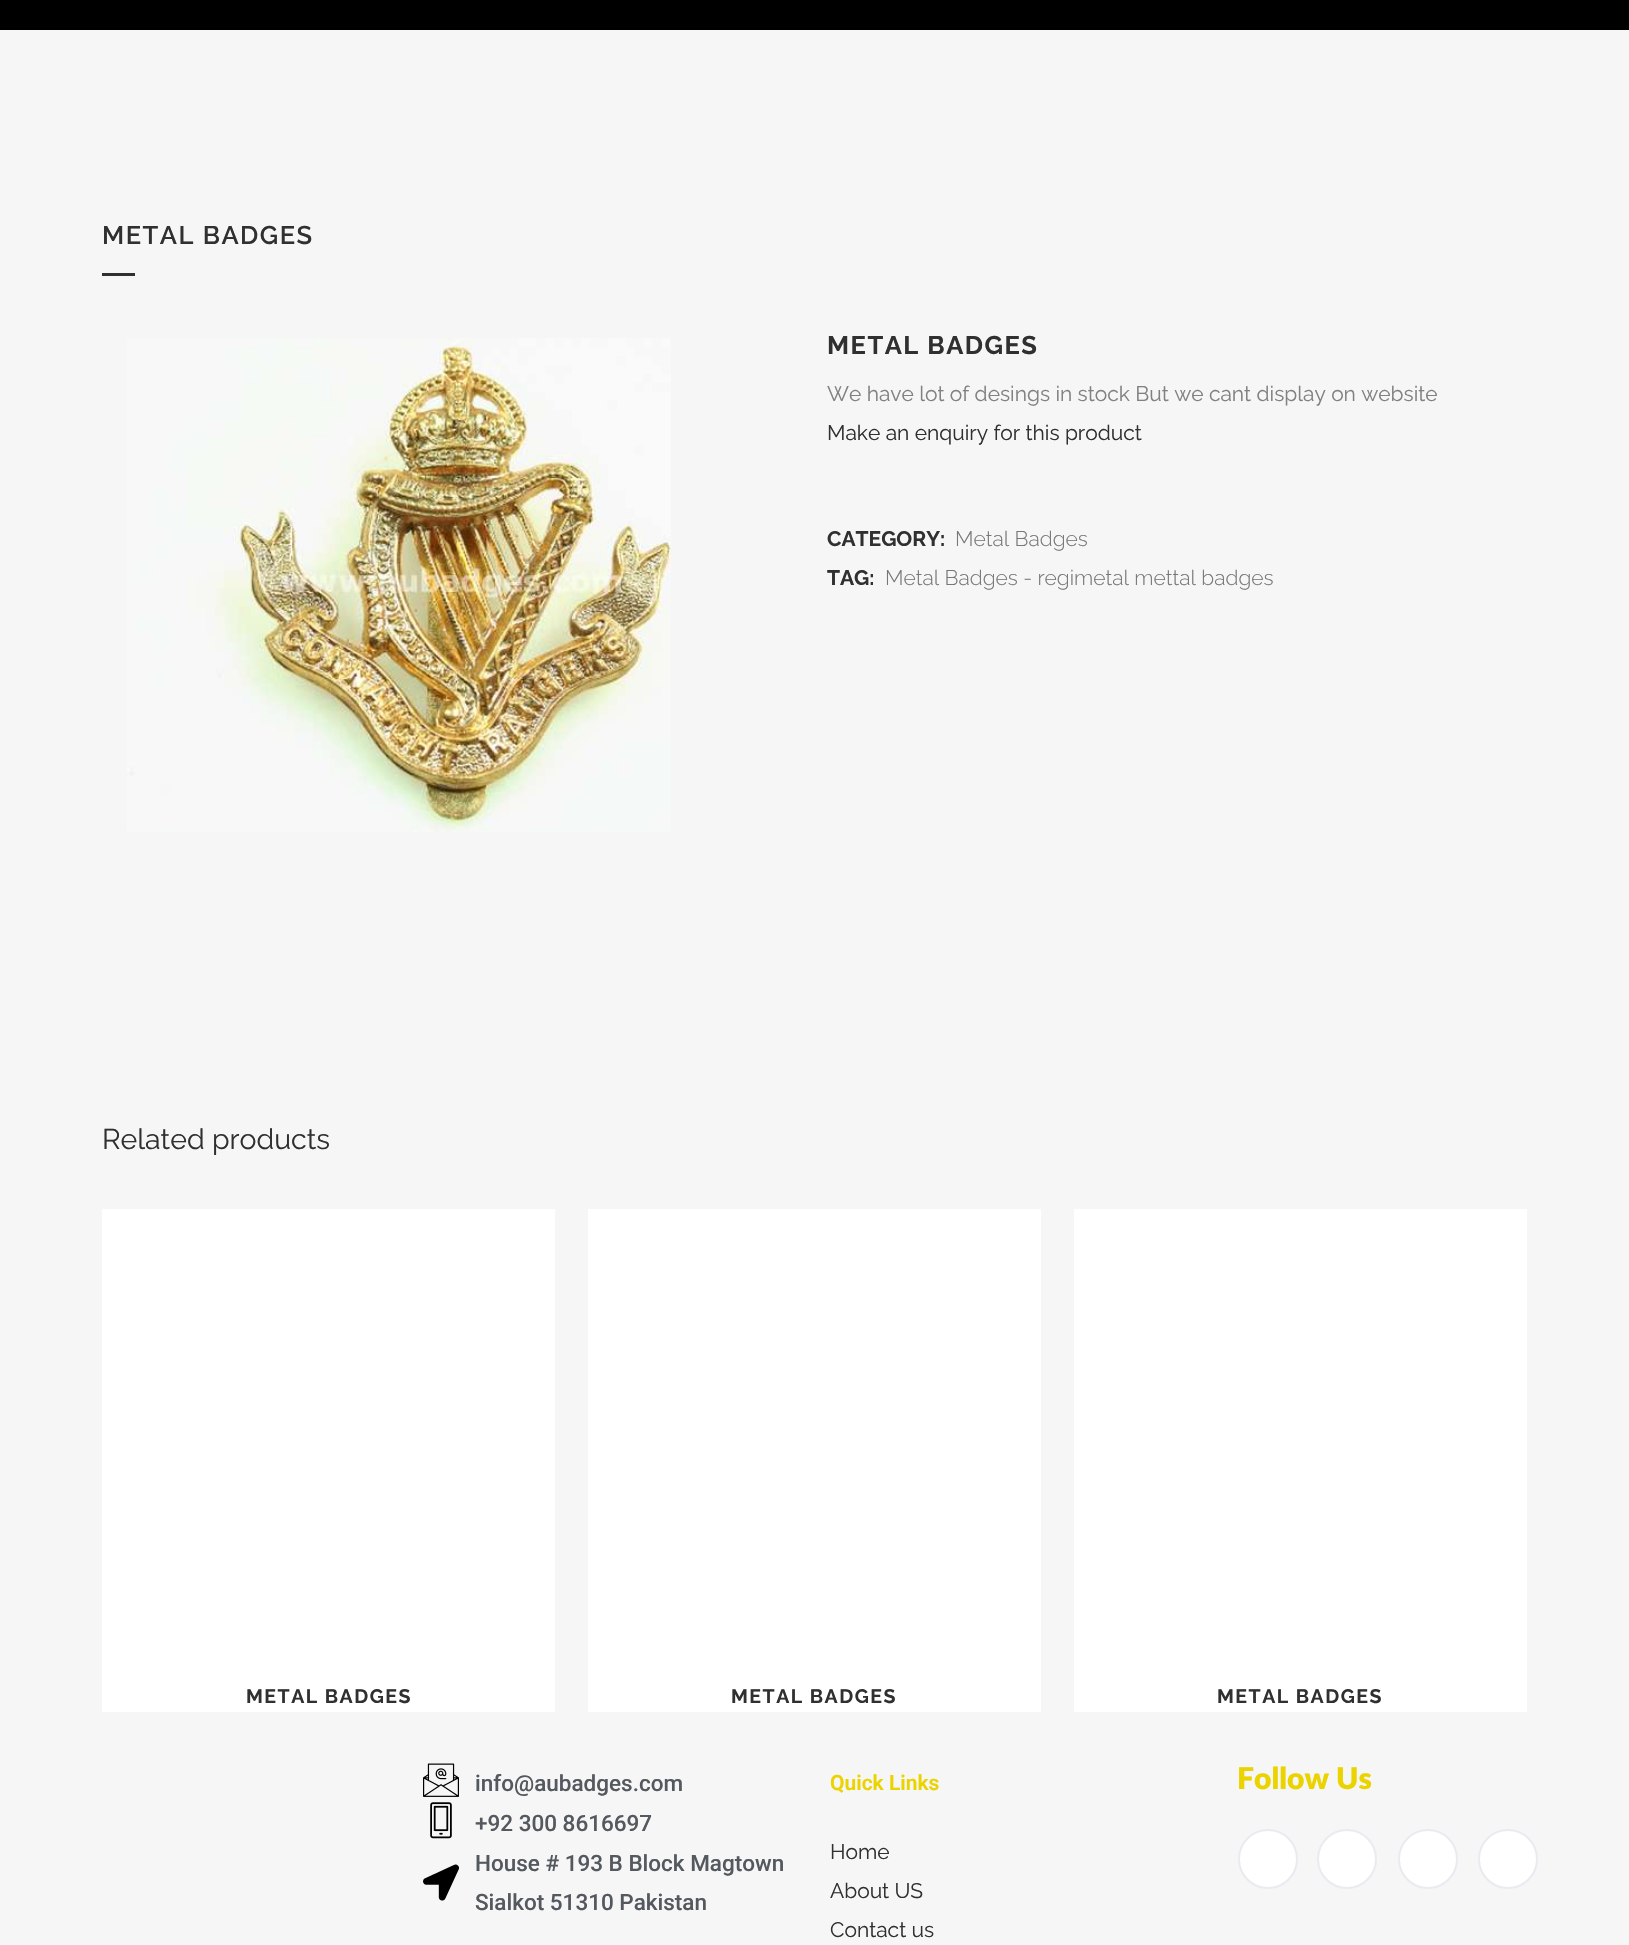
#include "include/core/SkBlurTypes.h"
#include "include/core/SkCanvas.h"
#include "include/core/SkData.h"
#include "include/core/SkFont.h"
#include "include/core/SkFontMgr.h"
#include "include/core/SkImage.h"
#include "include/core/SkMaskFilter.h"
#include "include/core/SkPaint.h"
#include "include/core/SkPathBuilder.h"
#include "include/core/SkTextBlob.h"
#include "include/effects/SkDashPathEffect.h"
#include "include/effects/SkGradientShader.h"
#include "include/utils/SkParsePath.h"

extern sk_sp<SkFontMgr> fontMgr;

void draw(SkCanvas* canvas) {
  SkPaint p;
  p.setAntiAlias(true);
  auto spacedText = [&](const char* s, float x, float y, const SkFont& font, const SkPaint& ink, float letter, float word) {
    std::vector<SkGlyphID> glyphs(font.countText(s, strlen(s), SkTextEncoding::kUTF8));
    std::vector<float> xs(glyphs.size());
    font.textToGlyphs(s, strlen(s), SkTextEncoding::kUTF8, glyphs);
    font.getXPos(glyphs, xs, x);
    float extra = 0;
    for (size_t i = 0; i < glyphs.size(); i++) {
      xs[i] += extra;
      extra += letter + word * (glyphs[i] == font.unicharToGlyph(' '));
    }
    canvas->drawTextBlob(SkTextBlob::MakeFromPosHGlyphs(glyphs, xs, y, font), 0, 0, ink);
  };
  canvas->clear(SkColorSetRGB(246, 246, 246));
  p.setColor(SK_ColorBLACK);
  canvas->drawRect(SkRect::MakeLTRB(0, 0, 1629, 30), p);
  p.setColor(SkColorSetRGB(48, 48, 48));
  canvas->drawRect(SkRect::MakeLTRB(102, 273, 135, 276), p);
  canvas->drawImageRect(SkImages::DeferredFromEncodedData(SkData::MakeFromFileName("images/1.png")), SkRect::MakeLTRB(127, 338, 671, 832), SkSamplingOptions());
  p.setColor(SK_ColorWHITE);
  canvas->drawRect(SkRect::MakeLTRB(102, 1209, 555, 1712), p);
  canvas->drawRect(SkRect::MakeLTRB(588, 1209, 1041, 1712), p);
  canvas->drawRect(SkRect::MakeLTRB(1074, 1209, 1527, 1712), p);
  canvas->drawImageRect(SkImages::DeferredFromEncodedData(SkData::MakeFromFileName("images/2.png")), SkRect::MakeLTRB(423, 1763, 459, 1797), SkSamplingOptions());
  canvas->drawImageRect(SkImages::DeferredFromEncodedData(SkData::MakeFromFileName("images/3.png")), SkRect::MakeLTRB(430, 1802, 452, 1839), SkSamplingOptions());
  canvas->drawImageRect(SkImages::DeferredFromEncodedData(SkData::MakeFromFileName("images/4.png")), SkRect::MakeLTRB(423, 1864, 459, 1901), SkSamplingOptions());
  canvas->drawCircle(1268, 1859, 29, p);
  p.setStyle(SkPaint::kStroke_Style);
  p.setStrokeWidth(2);
  p.setColor(SkColorSetRGB(234, 235, 241));
  canvas->drawCircle(1268, 1859, 29, p);
  p.setStyle(SkPaint::kFill_Style);
  p.setColor(SK_ColorWHITE);
  canvas->drawCircle(1347, 1859, 29, p);
  p.setStyle(SkPaint::kStroke_Style);
  p.setColor(SkColorSetRGB(234, 235, 241));
  canvas->drawCircle(1347, 1859, 29, p);
  p.setStyle(SkPaint::kFill_Style);
  p.setColor(SK_ColorWHITE);
  canvas->drawCircle(1428, 1859, 29, p);
  p.setStyle(SkPaint::kStroke_Style);
  p.setColor(SkColorSetRGB(234, 235, 241));
  canvas->drawCircle(1428, 1859, 29, p);
  p.setStyle(SkPaint::kFill_Style);
  p.setColor(SK_ColorWHITE);
  canvas->drawCircle(1508, 1859, 29, p);
  p.setStyle(SkPaint::kStroke_Style);
  p.setColor(SkColorSetRGB(234, 235, 241));
  canvas->drawCircle(1508, 1859, 29, p);
  SkFont font1(fontMgr->matchFamilyStyle("Raleway", SkFontStyle(600, SkFontStyle::kNormal_Width, SkFontStyle::kUpright_Slant)), 25.5f);
  font1.setSubpixel(true);
  p.setStyle(SkPaint::kFill_Style);
  p.setColor(SkColorSetRGB(48, 48, 48));
  spacedText("METAL BADGES", 102, 244, font1, p, 1.5f, 0);
  SkFont font2(fontMgr->matchFamilyStyle("Raleway", SkFontStyle::Bold()), 25.5f);
  font2.setSubpixel(true);
  spacedText("METAL BADGES", 827, 354, font2, p, 1.5f, 0);
  SkFont font3(fontMgr->matchFamilyStyle("Raleway", SkFontStyle::Normal()), 21);
  font3.setSubpixel(true);
  p.setColor(SkColorSetRGB(129, 129, 129));
  canvas->drawString("We have lot of desings in stock But we cant display on website", 827, 401, font3, p);
  p.setColor(SkColorSetRGB(48, 48, 48));
  canvas->drawString("Make an enquiry for this product", 827, 440, font3, p);
  SkFont font4(fontMgr->matchFamilyStyle("Raleway", SkFontStyle::Bold()), 21);
  font4.setSubpixel(true);
  canvas->drawString("CATEGORY:", 827, 546, font4, p);
  SkFont font5(fontMgr->matchFamilyStyle("Raleway", SkFontStyle(300, SkFontStyle::kNormal_Width, SkFontStyle::kUpright_Slant)), 21);
  font5.setSubpixel(true);
  p.setColor(SkColorSetRGB(119, 119, 119));
  canvas->drawString("Metal Badges", 955, 546, font5, p);
  p.setColor(SkColorSetRGB(48, 48, 48));
  canvas->drawString("TAG:", 827, 585, font4, p);
  p.setColor(SkColorSetRGB(119, 119, 119));
  canvas->drawString("Metal Badges - regimetal mettal badges", 885, 585, font5, p);
  SkFont font6(fontMgr->matchFamilyStyle("Raleway", SkFontStyle::Normal()), 28.5f);
  font6.setSubpixel(true);
  p.setColor(SkColorSetRGB(48, 48, 48));
  canvas->drawString("Related products", 102, 1149, font6, p);
  SkFont font7(fontMgr->matchFamilyStyle("Raleway", SkFontStyle::Bold()), 19.5f);
  font7.setSubpixel(true);
  spacedText("METAL BADGES", 246, 1703, font7, p, 1.5f, 0);
  spacedText("METAL BADGES", 731, 1703, font7, p, 1.5f, 0);
  spacedText("METAL BADGES", 1217, 1703, font7, p, 1.5f, 0);
  SkFont font8(fontMgr->matchFamilyStyle("Roboto", SkFontStyle(500, SkFontStyle::kNormal_Width, SkFontStyle::kUpright_Slant)), 22.5f);
  font8.setSubpixel(true);
  p.setColor(SkColorSetRGB(84, 89, 95));
  canvas->drawString("info@aubadges.com", 475, 1791, font8, p);
  canvas->drawString("+92 300 8616697", 475, 1831, font8, p);
  canvas->drawString("House # 193 B Block Magtown", 475, 1871, font8, p);
  canvas->drawString("Sialkot 51310 Pakistan", 475, 1910, font8, p);
  SkFont font9(fontMgr->matchFamilyStyle("Roboto", SkFontStyle(600, SkFontStyle::kNormal_Width, SkFontStyle::kUpright_Slant)), 21);
  font9.setSubpixel(true);
  p.setColor(SkColorSetRGB(235, 211, 0));
  canvas->drawString("Quick Links", 830, 1790, font9, p);
  p.setColor(SkColorSetRGB(48, 48, 48));
  canvas->drawString("Home", 830, 1859, font3, p);
  canvas->drawString("About US", 830, 1898, font3, p);
  canvas->drawString("Contact us", 830, 1937, font3, p);
  SkFont font10(fontMgr->matchFamilyStyle("Lato", SkFontStyle(800, SkFontStyle::kNormal_Width, SkFontStyle::kUpright_Slant)), 30);
  font10.setSubpixel(true);
  p.setColor(SkColorSetRGB(235, 211, 0));
  canvas->drawString("Follow Us", 1237, 1789, font10, p);
}
